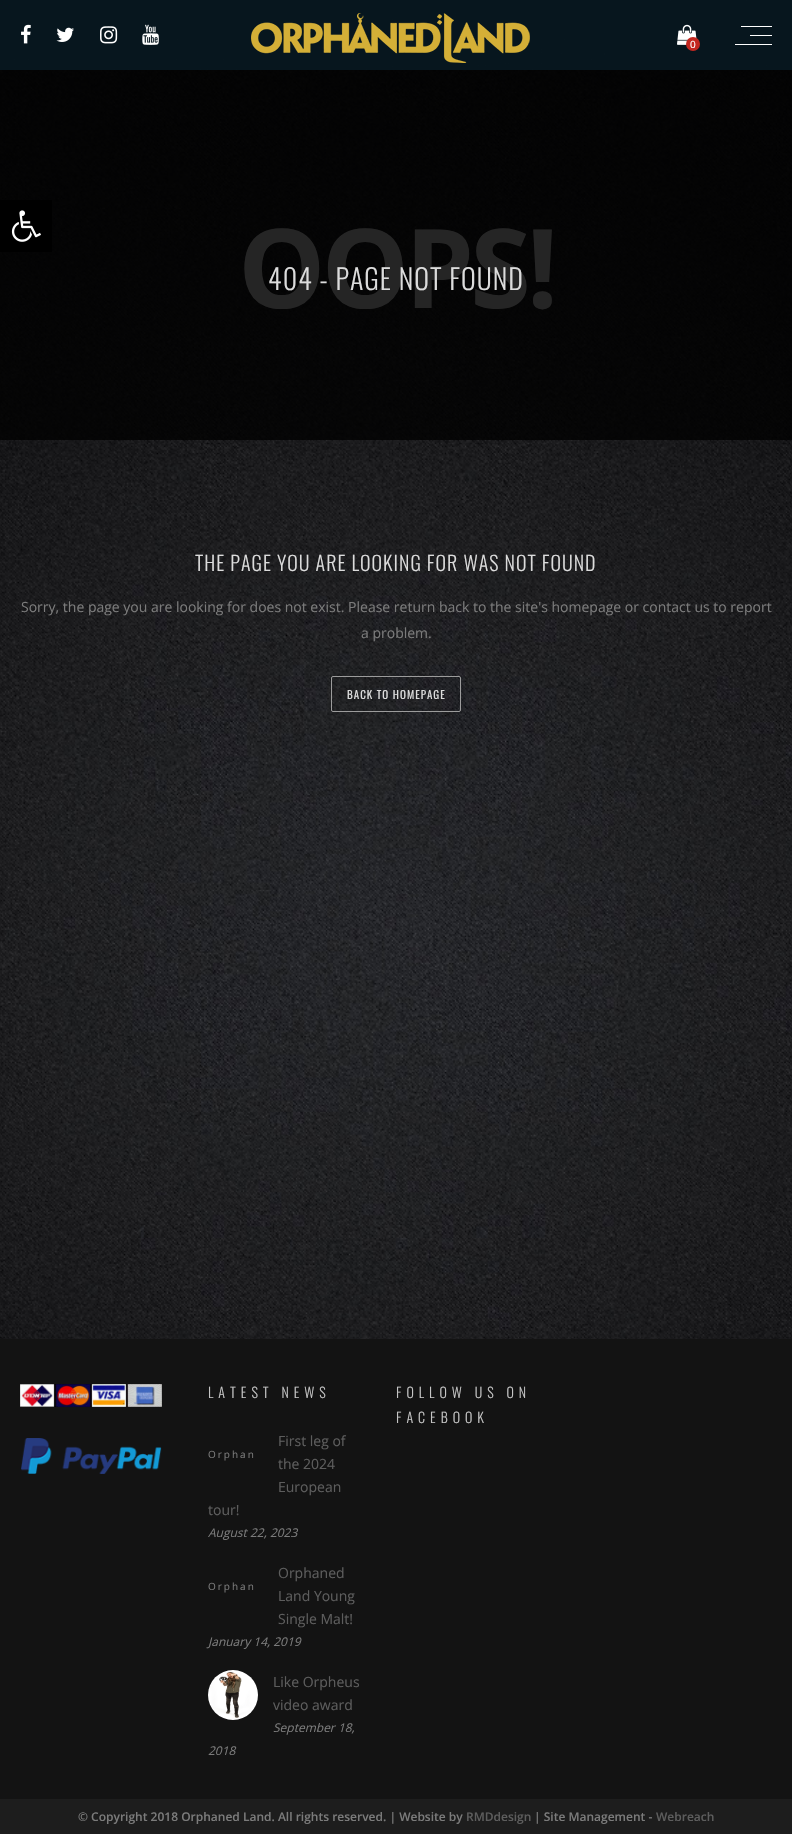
#include "include/core/SkBlurTypes.h"
#include "include/core/SkCanvas.h"
#include "include/core/SkData.h"
#include "include/core/SkFont.h"
#include "include/core/SkFontMgr.h"
#include "include/core/SkImage.h"
#include "include/core/SkMaskFilter.h"
#include "include/core/SkPaint.h"
#include "include/core/SkPathBuilder.h"
#include "include/core/SkTextBlob.h"
#include "include/effects/SkDashPathEffect.h"
#include "include/effects/SkGradientShader.h"
#include "include/utils/SkParsePath.h"

extern sk_sp<SkFontMgr> fontMgr;

void draw(SkCanvas* canvas) {
  SkPaint p;
  p.setAntiAlias(true);
  auto spacedText = [&](const char* s, float x, float y, const SkFont& font, const SkPaint& ink, float letter, float word) {
    std::vector<SkGlyphID> glyphs(font.countText(s, strlen(s), SkTextEncoding::kUTF8));
    std::vector<float> xs(glyphs.size());
    font.textToGlyphs(s, strlen(s), SkTextEncoding::kUTF8, glyphs);
    font.getXPos(glyphs, xs, x);
    float extra = 0;
    for (size_t i = 0; i < glyphs.size(); i++) {
      xs[i] += extra;
      extra += letter + word * (glyphs[i] == font.unicharToGlyph(' '));
    }
    canvas->drawTextBlob(SkTextBlob::MakeFromPosHGlyphs(glyphs, xs, y, font), 0, 0, ink);
  };
  canvas->clear(SK_ColorWHITE);
  canvas->drawImageRect(SkImages::DeferredFromEncodedData(SkData::MakeFromFileName("images/1.png")), SkRect::MakeLTRB(0, 0, 792, 1339), SkSamplingOptions());
  p.setColor(SkColorSetARGB(204, 0, 0, 0));
  canvas->drawRect(SkRect::MakeLTRB(0, 0, 792, 440), p);
  p.setColor(SkColorSetARGB(204, 8, 26, 36));
  canvas->drawRect(SkRect::MakeLTRB(0, 0, 792, 70), p);
  canvas->drawImageRect(SkImages::DeferredFromEncodedData(SkData::MakeFromFileName("images/2.png")), SkRect::MakeLTRB(21, 24, 31, 44), SkSamplingOptions());
  canvas->drawImageRect(SkImages::DeferredFromEncodedData(SkData::MakeFromFileName("images/3.png")), SkRect::MakeLTRB(56, 27, 74, 42), SkSamplingOptions());
  canvas->drawImageRect(SkImages::DeferredFromEncodedData(SkData::MakeFromFileName("images/4.png")), SkRect::MakeLTRB(100, 26, 118, 44), SkSamplingOptions());
  canvas->drawImageRect(SkImages::DeferredFromEncodedData(SkData::MakeFromFileName("images/5.png")), SkRect::MakeLTRB(142, 24, 159, 45), SkSamplingOptions());
  canvas->drawImageRect(SkImages::DeferredFromEncodedData(SkData::MakeFromFileName("images/6.png")), SkRect::MakeLTRB(251, 13, 530, 63), SkSamplingOptions());
  canvas->drawImageRect(SkImages::DeferredFromEncodedData(SkData::MakeFromFileName("images/7.png")), SkRect::MakeLTRB(677, 24, 697, 45), SkSamplingOptions());
  p.setColor(SkColorSetRGB(195, 39, 32));
  canvas->drawCircle(693, 44, 7, p);
  p.setColor(SK_ColorWHITE);
  canvas->drawRect(SkRect::MakeLTRB(741, 26, 772, 27), p);
  canvas->drawRect(SkRect::MakeLTRB(750, 35, 772, 36), p);
  canvas->drawRect(SkRect::MakeLTRB(735, 44, 772, 45), p);
  p.setStyle(SkPaint::kStroke_Style);
  p.setStrokeWidth(1);
  p.setColor(SkColorSetRGB(156, 156, 156));
  canvas->drawRoundRect(SkRect::MakeLTRB(331.5f, 676.5f, 460.5f, 711.5f), 1.5f, 1.5f, p);
  p.setStyle(SkPaint::kFill_Style);
  p.setColor(SkColorSetRGB(19, 19, 19));
  canvas->drawRect(SkRect::MakeLTRB(0, 1339, 792, 1799), p);
  canvas->drawImageRect(SkImages::DeferredFromEncodedData(SkData::MakeFromFileName("images/8.png")), SkRect::MakeLTRB(20, 1384, 162, 1407), SkSamplingOptions());
  canvas->drawImageRect(SkImages::DeferredFromEncodedData(SkData::MakeFromFileName("images/9.png")), SkRect::MakeLTRB(21, 1438, 162, 1474), SkSamplingOptions());
  canvas->drawImageRect(SkImages::DeferredFromEncodedData(SkData::MakeFromFileName("images/10.png")), SkRect::MakeLTRB(208, 1670, 258, 1720), SkSamplingOptions());
  p.setColor(SkColorSetRGB(29, 29, 29));
  canvas->drawRect(SkRect::MakeLTRB(0, 1799, 792, 1834), p);
  p.setColor(SK_ColorBLACK);
  canvas->drawRect(SkRect::MakeLTRB(0, 200, 52, 252), p);
  canvas->drawImageRect(SkImages::DeferredFromEncodedData(SkData::MakeFromFileName("images/11.png")), SkRect::MakeLTRB(11, 210, 41, 242), SkSamplingOptions());
  SkFont font1(fontMgr->matchFamilyStyle("Open Sans", SkFontStyle::Normal()), 10);
  font1.setSubpixel(true);
  p.setColor(SK_ColorWHITE);
  canvas->drawString("0", 690, 48, font1, p);
  SkFont font2(fontMgr->matchFamilyStyle("Open Sans", SkFontStyle::Bold()), 110);
  font2.setSubpixel(true);
  p.setColor(SkColorSetRGB(37, 37, 37));
  spacedText("OOPS!", 238, 308, font2, p, -4, 0);
  SkFont font3(fontMgr->matchFamilyStyle("Oswald", SkFontStyle(300, SkFontStyle::kNormal_Width, SkFontStyle::kUpright_Slant)), 28);
  font3.setSubpixel(true);
  p.setColor(SkColorSetRGB(220, 220, 220));
  spacedText("404 - PAGE NOT FOUND", 268, 290, font3, p, 1, 0);
  SkFont font4(fontMgr->matchFamilyStyle("Oswald", SkFontStyle(300, SkFontStyle::kNormal_Width, SkFontStyle::kUpright_Slant)), 20);
  font4.setSubpixel(true);
  spacedText("THE PAGE YOU ARE LOOKING FOR WAS NOT FOUND", 195, 571, font4, p, 1, 0);
  SkFont font5(fontMgr->matchFamilyStyle("Open Sans", SkFontStyle::Normal()), 14);
  font5.setSubpixel(true);
  p.setColor(SkColorSetRGB(123, 123, 123));
  canvas->drawString("Sorry, the page you are looking for does not exist. Please return back to the site's homepage or contact us to report", 21, 612, font5, p);
  canvas->drawString("a problem.", 361, 638, font5, p);
  SkFont font6(fontMgr->matchFamilyStyle("Oswald", SkFontStyle::Normal()), 11);
  font6.setSubpixel(true);
  p.setColor(SkColorSetRGB(220, 220, 220));
  spacedText("BACK TO HOMEPAGE", 347, 699, font6, p, 1, 0);
  SkFont font7(fontMgr->matchFamilyStyle("Oswald", SkFontStyle(300, SkFontStyle::kNormal_Width, SkFontStyle::kUpright_Slant)), 14);
  font7.setSubpixel(true);
  p.setColor(SkColorSetRGB(197, 197, 197));
  spacedText("LATEST NEWS", 208, 1398, font7, p, 5, 0);
  p.setColor(SkColorSetRGB(93, 93, 93));
  canvas->drawString("First leg of", 278, 1446, font5, p);
  p.setColor(SkColorSetRGB(123, 123, 123));
  spacedText("Orphan", 208, 1458, font1, p, 2, 0);
  p.setColor(SkColorSetRGB(93, 93, 93));
  canvas->drawString("the 2024", 278, 1469, font5, p);
  canvas->drawString("European", 278, 1492, font5, p);
  canvas->drawString("tour!", 208, 1515, font5, p);
  SkFont font8(fontMgr->matchFamilyStyle("Open Sans", SkFontStyle::Italic()), 12);
  font8.setSubpixel(true);
  p.setColor(SkColorSetRGB(123, 123, 123));
  canvas->drawString("August 22, 2023", 208, 1537, font8, p);
  p.setColor(SkColorSetRGB(93, 93, 93));
  canvas->drawString("Orphaned", 278, 1578, font5, p);
  p.setColor(SkColorSetRGB(123, 123, 123));
  spacedText("Orphan", 208, 1590, font1, p, 2, 0);
  p.setColor(SkColorSetRGB(93, 93, 93));
  canvas->drawString("Land Young", 278, 1601, font5, p);
  canvas->drawString("Single Malt!", 278, 1624, font5, p);
  p.setColor(SkColorSetRGB(123, 123, 123));
  canvas->drawString("January 14, 2019", 208, 1646, font8, p);
  p.setColor(SkColorSetRGB(93, 93, 93));
  canvas->drawString("Like Orpheus", 273, 1687, font5, p);
  canvas->drawString("video award", 273, 1710, font5, p);
  p.setColor(SkColorSetRGB(123, 123, 123));
  canvas->drawString("September 18,", 273, 1732, font8, p);
  canvas->drawString("2018", 208, 1755, font8, p);
  p.setColor(SkColorSetRGB(197, 197, 197));
  spacedText("FOLLOW US ON", 396, 1398, font7, p, 5, 0);
  spacedText("FACEBOOK", 396, 1423, font7, p, 5, 0);
  SkFont font9(fontMgr->matchFamilyStyle("Open Sans", SkFontStyle(600, SkFontStyle::kNormal_Width, SkFontStyle::kUpright_Slant)), 12);
  font9.setSubpixel(true);
  p.setColor(SkColorSetRGB(123, 123, 123));
  canvas->drawString("© Copyright 2018 Orphaned Land. All rights reserved. | Website by", 78, 1821, font9, p);
  p.setColor(SkColorSetRGB(93, 93, 93));
  canvas->drawString("RMDdesign", 466, 1821, font9, p);
  p.setColor(SkColorSetRGB(123, 123, 123));
  canvas->drawString("| Site Management -", 534, 1821, font9, p);
  p.setColor(SkColorSetRGB(93, 93, 93));
  canvas->drawString("Webreach", 656, 1821, font9, p);
}
